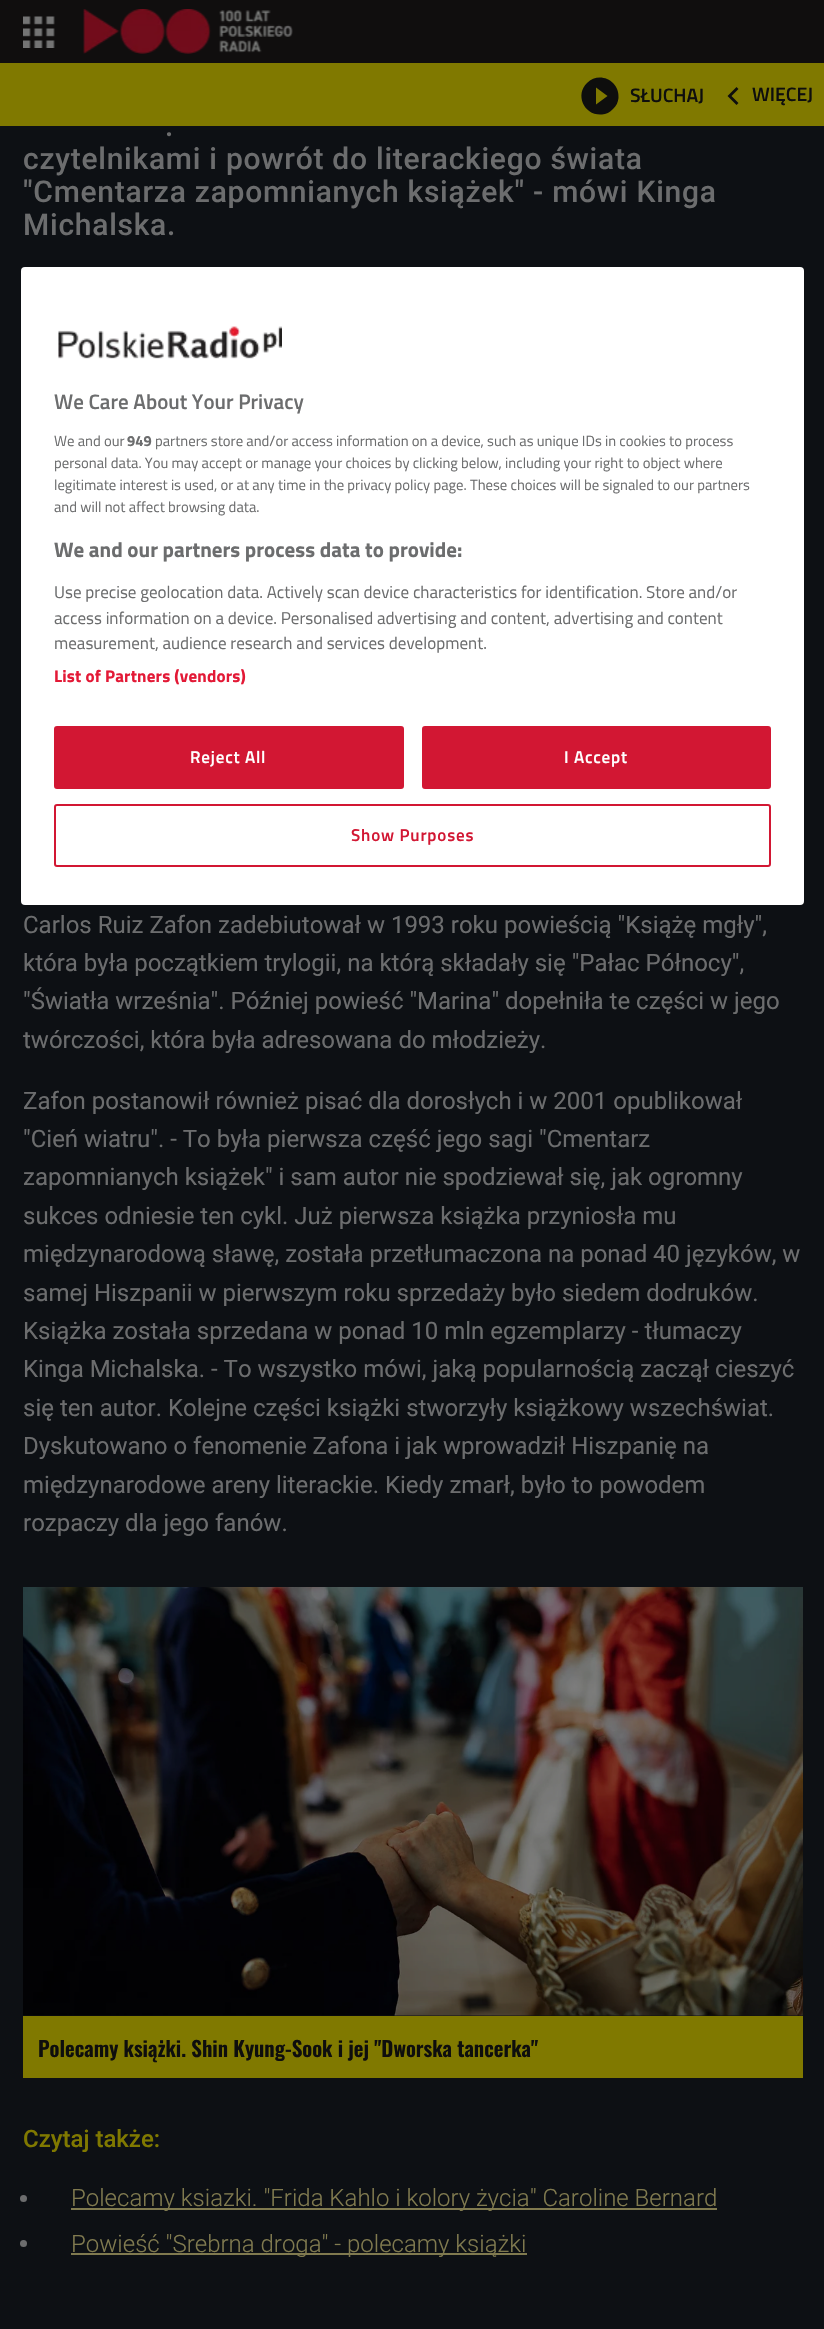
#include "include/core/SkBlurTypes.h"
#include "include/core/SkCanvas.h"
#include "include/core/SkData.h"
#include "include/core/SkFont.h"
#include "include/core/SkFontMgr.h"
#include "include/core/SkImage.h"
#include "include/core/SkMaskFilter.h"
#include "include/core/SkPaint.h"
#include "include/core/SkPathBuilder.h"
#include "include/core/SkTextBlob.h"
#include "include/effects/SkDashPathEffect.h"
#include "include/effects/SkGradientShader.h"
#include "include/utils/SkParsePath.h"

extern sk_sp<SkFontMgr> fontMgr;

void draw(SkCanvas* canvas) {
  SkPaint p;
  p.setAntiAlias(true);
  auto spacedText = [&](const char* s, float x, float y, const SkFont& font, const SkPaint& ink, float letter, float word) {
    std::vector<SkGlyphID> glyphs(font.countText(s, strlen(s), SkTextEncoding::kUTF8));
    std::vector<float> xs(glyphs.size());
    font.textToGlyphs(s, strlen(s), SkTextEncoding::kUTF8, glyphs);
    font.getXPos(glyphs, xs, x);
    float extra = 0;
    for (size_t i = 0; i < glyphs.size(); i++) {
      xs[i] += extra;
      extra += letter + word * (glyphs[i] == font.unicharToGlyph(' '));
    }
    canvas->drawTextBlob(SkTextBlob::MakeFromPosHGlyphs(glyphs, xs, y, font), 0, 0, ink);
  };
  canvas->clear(SkColorSetRGB(13, 16, 20));
  p.setColor(SkColorSetRGB(16, 14, 14));
  canvas->drawRect(SkRect::MakeLTRB(0, 0, 824, 63), p);
  canvas->drawImageRect(SkImages::DeferredFromEncodedData(SkData::MakeFromFileName("images/1.png")), SkRect::MakeLTRB(23, 16, 55, 48), SkSamplingOptions());
  canvas->drawImageRect(SkImages::DeferredFromEncodedData(SkData::MakeFromFileName("images/2.png")), SkRect::MakeLTRB(83, 9, 293, 54), SkSamplingOptions());
  p.setColor(SkColorSetRGB(128, 121, 0));
  canvas->drawRect(SkRect::MakeLTRB(0, 63, 824, 126), p);
  p.setColor(SkColorSetRGB(14, 14, 13));
  canvas->drawPath(SkPathBuilder().moveTo(596, 104.5f).lineTo(607.5f, 96).lineTo(596, 87.5f).close().moveTo(587, 83).cubicTo(599, 70.5f, 620, 80.5f, 618.5f, 98).cubicTo(618, 102, 616.5f, 106, 613, 109).cubicTo(610, 112.5f, 606, 114, 602, 114.5f).cubicTo(584.5f, 116, 574.5f, 95, 587, 83).close().detach(), p);
  canvas->drawPath(SkPathBuilder().moveTo(738.5f, 103).lineTo(736.5f, 105).lineTo(727.5f, 96).lineTo(736.5f, 87).lineTo(738.5f, 89).lineTo(731.5f, 96).close().detach(), p);
  canvas->drawImageRect(SkImages::DeferredFromEncodedData(SkData::MakeFromFileName("images/3.png")), SkRect::MakeLTRB(23, 1587, 803, 2016), SkSamplingOptions());
  p.setColor(SkColorSetRGB(128, 121, 0));
  canvas->drawRect(SkRect::MakeLTRB(23, 2016, 803, 2078), p);
  p.setColor(SkColorSetRGB(108, 109, 110));
  canvas->drawCircle(23.5f, 2198.5f, 3.5f, p);
  p.setColor(SkColorSetRGB(128, 122, 79));
  canvas->drawRect(SkRect::MakeLTRB(71, 2208, 717, 2210), p);
  p.setColor(SkColorSetRGB(108, 109, 110));
  canvas->drawCircle(23.5f, 2243.5f, 3.5f, p);
  p.setColor(SkColorSetRGB(128, 122, 79));
  canvas->drawRect(SkRect::MakeLTRB(71, 2253, 527, 2255), p);
  p.setColor(SK_ColorWHITE);
  canvas->drawRoundRect(SkRect::MakeLTRB(21, 267, 804, 905), 4, 4, p);
  canvas->drawImageRect(SkImages::DeferredFromEncodedData(SkData::MakeFromFileName("images/4.png")), SkRect::MakeLTRB(58, 326, 282, 359), SkSamplingOptions());
  p.setColor(SkColorSetRGB(210, 23, 51));
  canvas->drawRoundRect(SkRect::MakeLTRB(55, 727, 403, 788), 2, 2, p);
  p.setStyle(SkPaint::kStroke_Style);
  p.setStrokeWidth(2);
  canvas->drawRoundRect(SkRect::MakeLTRB(55, 727, 403, 788), 2, 2, p);
  p.setStyle(SkPaint::kFill_Style);
  canvas->drawRoundRect(SkRect::MakeLTRB(423, 727, 770, 788), 2, 2, p);
  p.setStyle(SkPaint::kStroke_Style);
  canvas->drawRoundRect(SkRect::MakeLTRB(423, 727, 770, 788), 2, 2, p);
  canvas->drawRoundRect(SkRect::MakeLTRB(55, 805, 770, 866), 2, 2, p);
  SkFont font1(fontMgr->matchFamilyStyle("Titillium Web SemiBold", SkFontStyle(600, SkFontStyle::kNormal_Width, SkFontStyle::kUpright_Slant)), 19.5f);
  font1.setSubpixel(true);
  p.setStyle(SkPaint::kFill_Style);
  p.setColor(SkColorSetRGB(14, 14, 13));
  canvas->drawString("SŁUCHAJ", 630, 102, font1, p);
  canvas->drawString("WIĘCEJ", 752, 101, font1, p);
  SkFont font2(fontMgr->matchFamilyStyle("Roboto", SkFontStyle(500, SkFontStyle::kNormal_Width, SkFontStyle::kUpright_Slant)), 30);
  font2.setSubpixel(true);
  p.setColor(SkColorSetRGB(108, 109, 110));
  spacedText(".", 165, 136, font2, p, 0.75f, 0);
  spacedText("czytelnikami i powrót do literackiego świata", 23, 169, font2, p, 0.75f, 0);
  spacedText("\"Cmentarza zapomnianych książek\" - mówi Kinga", 23, 202, font2, p, 0.75f, 0);
  spacedText("Michalska.", 23, 235, font2, p, 0.75f, 0);
  SkFont font3(fontMgr->matchFamilyStyle("Roboto", SkFontStyle::Normal()), 24);
  font3.setSubpixel(true);
  canvas->drawString("Carlos Ruiz Zafon zadebiutował w 1993 roku powieścią \"Książę mgły\",", 23, 933, font3, p);
  canvas->drawString("która była początkiem trylogii, na którą składały się \"Pałac Północy\",", 23, 971, font3, p);
  canvas->drawString("\"Światła września\". Później powieść \"Marina\" dopełniła te części w jego", 23, 1009, font3, p);
  canvas->drawString("twórczości, która była adresowana do młodzieży.", 23, 1048, font3, p);
  canvas->drawString("Zafon postanowił również pisać dla dorosłych i w 2001 opublikował", 23, 1109, font3, p);
  canvas->drawString("\"Cień wiatru\". - To była pierwsza część jego sagi \"Cmentarz", 23, 1147, font3, p);
  canvas->drawString("zapomnianych książek\" i sam autor nie spodziewał się, jak ogromny", 23, 1185, font3, p);
  canvas->drawString("sukces odniesie ten cykl. Już pierwsza książka przyniosła mu", 23, 1224, font3, p);
  canvas->drawString("międzynarodową sławę, została przetłumaczona na ponad 40 języków, w", 23, 1262, font3, p);
  canvas->drawString("samej Hiszpanii w pierwszym roku sprzedaży było siedem dodruków.", 23, 1301, font3, p);
  canvas->drawString("Książka została sprzedana w ponad 10 mln egzemplarzy - tłumaczy", 23, 1339, font3, p);
  canvas->drawString("Kinga Michalska. - To wszystko mówi, jaką popularnością zaczął cieszyć", 23, 1377, font3, p);
  canvas->drawString("się ten autor. Kolejne części książki stworzyły książkowy wszechświat.", 23, 1416, font3, p);
  canvas->drawString("Dyskutowano o fenomenie Zafona i jak wprowadził Hiszpanię na", 23, 1454, font3, p);
  canvas->drawString("międzynarodowe areny literackie. Kiedy zmarł, było to powodem", 23, 1493, font3, p);
  canvas->drawString("rozpaczy dla jego fanów.", 23, 1531, font3, p);
  SkFont font4(fontMgr->matchFamilyStyle("Oswald", SkFontStyle(600, SkFontStyle::kNormal_Width, SkFontStyle::kUpright_Slant)), 21);
  font4.setSubpixel(true);
  p.setColor(SkColorSetRGB(14, 14, 13));
  canvas->drawString("Polecamy książki. Shin Kyung-Sook i jej \"Dworska tancerka\"", 38, 2057, font4, p);
  SkFont font5(fontMgr->matchFamilyStyle("Roboto", SkFontStyle(500, SkFontStyle::kNormal_Width, SkFontStyle::kUpright_Slant)), 24);
  font5.setSubpixel(true);
  p.setColor(SkColorSetRGB(128, 121, 0));
  canvas->drawString("Czytaj także:", 23, 2147, font5, p);
  SkFont font6(fontMgr->matchFamilyStyle("Roboto", SkFontStyle(300, SkFontStyle::kNormal_Width, SkFontStyle::kUpright_Slant)), 24);
  font6.setSubpixel(true);
  p.setColor(SkColorSetRGB(128, 122, 79));
  canvas->drawString("Polecamy ksiazki. \"Frida Kahlo i kolory życia\" Caroline Bernard", 71, 2206, font6, p);
  canvas->drawString("Powieść \"Srebrna droga\" - polecamy książki", 71, 2252, font6, p);
  SkFont font7(fontMgr->matchFamilyStyle("Titillium Web SemiBold", SkFontStyle(600, SkFontStyle::kNormal_Width, SkFontStyle::kUpright_Slant)), 21);
  font7.setSubpixel(true);
  p.setColor(SkColorSetRGB(108, 109, 110));
  canvas->drawString("We Care About Your Privacy", 54, 409, font7, p);
  SkFont font8(fontMgr->matchFamilyStyle("Titillium Web", SkFontStyle::Normal()), 14.7f);
  font8.setSubpixel(true);
  canvas->drawString("We and our", 54, 446, font8, p);
  SkFont font9(fontMgr->matchFamilyStyle("Titillium Web", SkFontStyle::Bold()), 14.7f);
  font9.setSubpixel(true);
  canvas->drawString("949", 127, 446, font9, p);
  canvas->drawString("partners store and/or access information on a device, such as unique IDs in cookies to process", 155, 446, font8, p);
  canvas->drawString("personal data. You may accept or manage your choices by clicking below, including your right to object where", 54, 468, font8, p);
  canvas->drawString("legitimate interest is used, or at any time in the privacy policy page. These choices will be signaled to our partners", 54, 490, font8, p);
  canvas->drawString("and will not affect browsing data.", 54, 512, font8, p);
  SkFont font10(fontMgr->matchFamilyStyle("Titillium Web", SkFontStyle::Bold()), 21);
  font10.setSubpixel(true);
  canvas->drawString("We and our partners process data to provide:", 54, 557, font10, p);
  SkFont font11(fontMgr->matchFamilyStyle("Titillium Web", SkFontStyle::Normal()), 17.05f);
  font11.setSubpixel(true);
  canvas->drawString("Use precise geolocation data. Actively scan device characteristics for identification. Store and/or", 54, 598, font11, p);
  canvas->drawString("access information on a device. Personalised advertising and content, advertising and content", 54, 624, font11, p);
  canvas->drawString("measurement, audience research and services development.", 54, 649, font11, p);
  SkFont font12(fontMgr->matchFamilyStyle("Titillium Web", SkFontStyle::Bold()), 17.05f);
  font12.setSubpixel(true);
  p.setColor(SkColorSetRGB(227, 25, 54));
  spacedText("List of Partners (vendors)", 54, 682, font12, p, 0.2f, 0);
  SkFont font13(fontMgr->matchFamilyStyle("Titillium Web SemiBold", SkFontStyle(600, SkFontStyle::kNormal_Width, SkFontStyle::kUpright_Slant)), 17.05f);
  font13.setSubpixel(true);
  p.setColor(SK_ColorWHITE);
  spacedText("Reject All", 190, 763, font13, p, 0.8f, 0);
  spacedText("I Accept", 564, 763, font13, p, 0.8f, 0);
  p.setColor(SkColorSetRGB(210, 23, 51));
  spacedText("Show Purposes", 351, 841, font13, p, 0.8f, 0);
}
